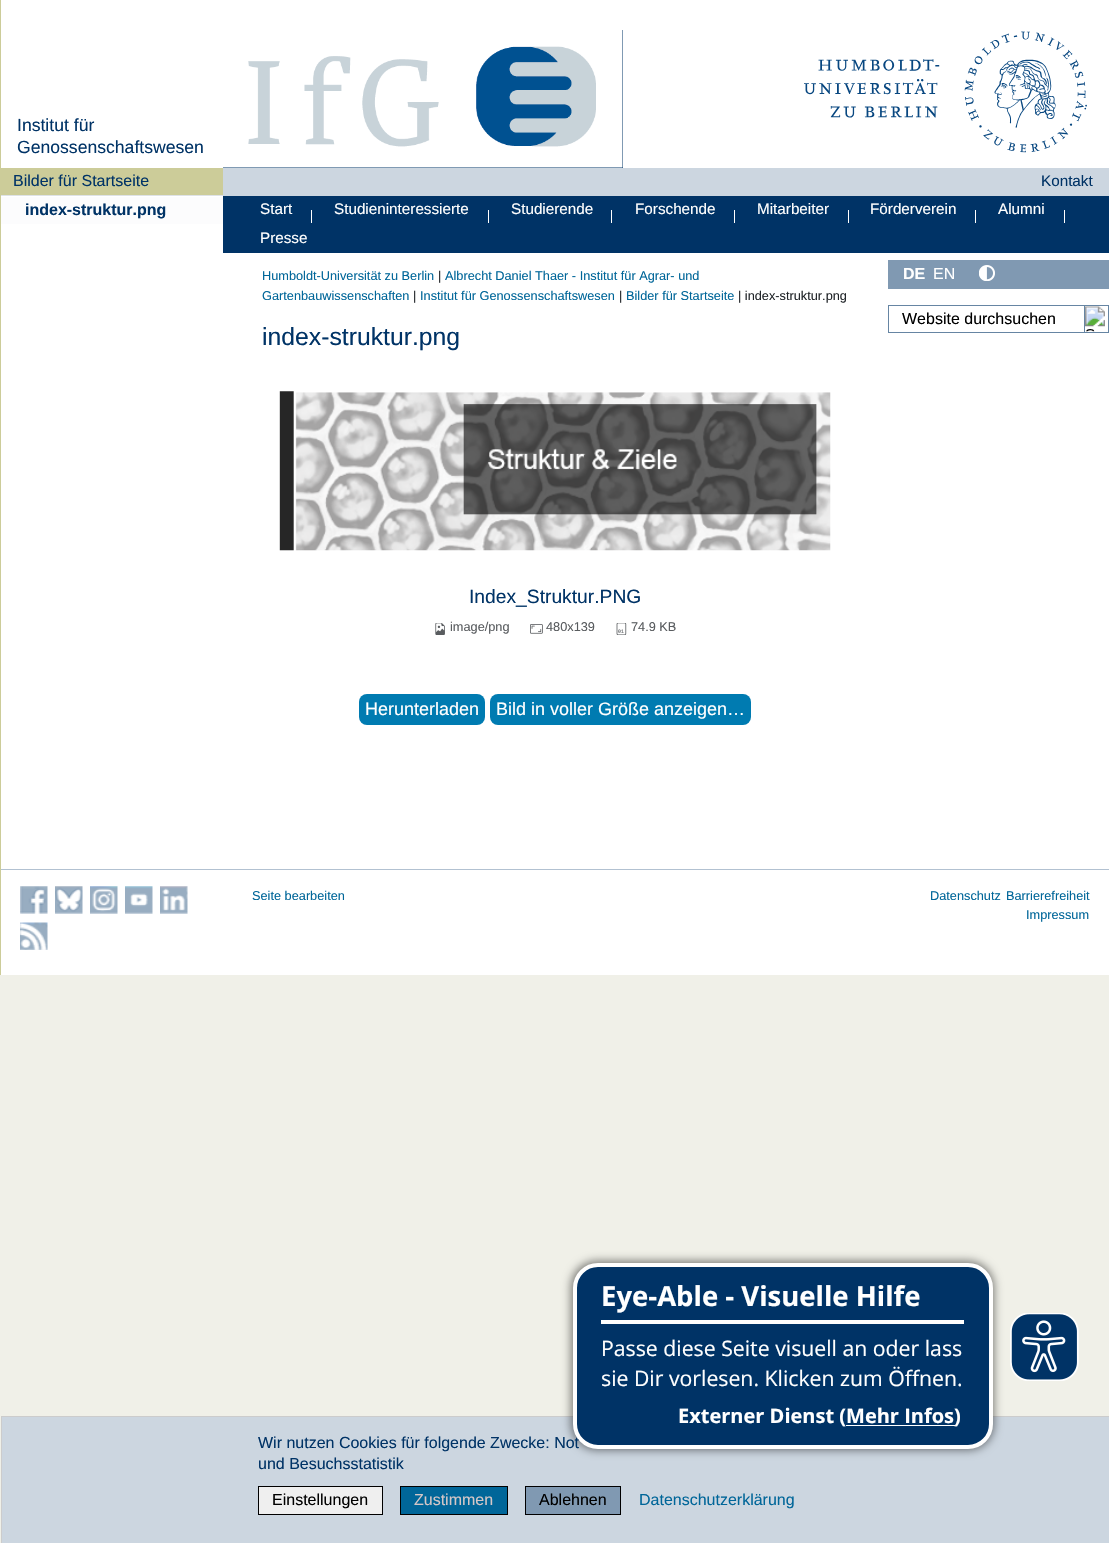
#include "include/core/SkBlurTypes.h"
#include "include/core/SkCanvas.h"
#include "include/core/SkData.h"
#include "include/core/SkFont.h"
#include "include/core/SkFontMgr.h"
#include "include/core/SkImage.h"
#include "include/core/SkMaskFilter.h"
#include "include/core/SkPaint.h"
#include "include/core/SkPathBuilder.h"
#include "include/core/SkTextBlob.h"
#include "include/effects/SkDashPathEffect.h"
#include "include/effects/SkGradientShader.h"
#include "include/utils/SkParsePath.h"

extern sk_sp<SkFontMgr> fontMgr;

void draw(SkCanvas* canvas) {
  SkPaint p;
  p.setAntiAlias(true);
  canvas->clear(SkColorSetRGB(240, 240, 232));
  p.setColor(SK_ColorWHITE);
  canvas->drawRect(SkRect::MakeLTRB(1, 0, 1109, 975), p);
  p.setColor(SkColorSetRGB(0, 51, 102));
  canvas->drawRect(SkRect::MakeLTRB(223, 30, 623, 168), p);
  canvas->drawImageRect(SkImages::DeferredFromEncodedData(SkData::MakeFromFileName("images/1.png")), SkRect::MakeLTRB(223, 30, 623, 168), SkSamplingOptions());
  canvas->drawImageRect(SkImages::DeferredFromEncodedData(SkData::MakeFromFileName("images/2.png")), SkRect::MakeLTRB(804, 31, 1087, 153), SkSamplingOptions());
  p.setColor(SkColorSetRGB(204, 204, 153));
  canvas->drawRect(SkRect::MakeLTRB(0, 0, 1, 975), p);
  canvas->drawRect(SkRect::MakeLTRB(1, 168, 223, 195), p);
  p.setColor(SkColorSetRGB(222, 226, 230));
  canvas->drawRect(SkRect::MakeLTRB(1, 195, 223, 196), p);
  p.setColor(SkColorSetRGB(252, 252, 253));
  canvas->drawRect(SkRect::MakeLTRB(1, 197, 223, 224), p);
  p.setColor(SkColorSetRGB(204, 214, 224));
  canvas->drawRect(SkRect::MakeLTRB(223, 168, 1109, 196), p);
  p.setColor(SkColorSetRGB(0, 51, 102));
  canvas->drawRect(SkRect::MakeLTRB(223, 196, 1109, 253), p);
  p.setColor(SK_ColorWHITE);
  canvas->drawRect(SkRect::MakeLTRB(311, 210, 312, 223), p);
  canvas->drawRect(SkRect::MakeLTRB(488, 210, 489, 223), p);
  canvas->drawRect(SkRect::MakeLTRB(611, 210, 612, 223), p);
  canvas->drawRect(SkRect::MakeLTRB(734, 210, 735, 223), p);
  canvas->drawRect(SkRect::MakeLTRB(848, 210, 849, 223), p);
  canvas->drawRect(SkRect::MakeLTRB(975, 210, 976, 223), p);
  canvas->drawRect(SkRect::MakeLTRB(1064, 210, 1065, 223), p);
  canvas->drawImageRect(SkImages::DeferredFromEncodedData(SkData::MakeFromFileName("images/3.png")), SkRect::MakeLTRB(279, 391, 831, 551), SkSamplingOptions());
  canvas->drawImageRect(SkImages::DeferredFromEncodedData(SkData::MakeFromFileName("images/4.png")), SkRect::MakeLTRB(435, 623, 445, 635), SkSamplingOptions());
  canvas->drawImageRect(SkImages::DeferredFromEncodedData(SkData::MakeFromFileName("images/5.png")), SkRect::MakeLTRB(530, 624, 543, 634), SkSamplingOptions());
  canvas->drawImageRect(SkImages::DeferredFromEncodedData(SkData::MakeFromFileName("images/6.png")), SkRect::MakeLTRB(616, 623, 627, 635), SkSamplingOptions());
  p.setColor(SkColorSetRGB(0, 123, 177));
  canvas->drawRoundRect(SkRect::MakeLTRB(359, 694, 485, 725), 8, 8, p);
  canvas->drawRoundRect(SkRect::MakeLTRB(490, 694, 751, 725), 8, 8, p);
  p.setColor(SkColorSetRGB(128, 153, 178));
  canvas->drawRect(SkRect::MakeLTRB(888, 260, 1109, 289), p);
  canvas->drawImageRect(SkImages::DeferredFromEncodedData(SkData::MakeFromFileName("images/7.png")), SkRect::MakeLTRB(979, 265, 995, 281), SkSamplingOptions());
  p.setStyle(SkPaint::kStroke_Style);
  p.setStrokeWidth(1);
  p.setColor(SkColorSetRGB(102, 133, 163));
  canvas->drawRect(SkRect::MakeLTRB(888.5f, 305.5f, 1108.5f, 332.5f), p);
  canvas->drawRect(SkRect::MakeLTRB(1084.5f, 305.5f, 1108.5f, 332.5f), p);
  canvas->drawImageRect(SkImages::DeferredFromEncodedData(SkData::MakeFromFileName("images/8.png")), SkRect::MakeLTRB(1085, 306, 1105, 332), SkSamplingOptions());
  p.setStyle(SkPaint::kFill_Style);
  p.setColor(SkColorSetRGB(178, 193, 209));
  canvas->drawRect(SkRect::MakeLTRB(1, 869, 1109, 870), p);
  canvas->drawImageRect(SkImages::DeferredFromEncodedData(SkData::MakeFromFileName("images/9.png")), SkRect::MakeLTRB(20, 886, 48, 914), SkSamplingOptions());
  canvas->drawImageRect(SkImages::DeferredFromEncodedData(SkData::MakeFromFileName("images/10.png")), SkRect::MakeLTRB(55, 886, 83, 914), SkSamplingOptions());
  canvas->drawImageRect(SkImages::DeferredFromEncodedData(SkData::MakeFromFileName("images/11.png")), SkRect::MakeLTRB(90, 886, 118, 914), SkSamplingOptions());
  canvas->drawImageRect(SkImages::DeferredFromEncodedData(SkData::MakeFromFileName("images/12.png")), SkRect::MakeLTRB(125, 886, 153, 914), SkSamplingOptions());
  canvas->drawImageRect(SkImages::DeferredFromEncodedData(SkData::MakeFromFileName("images/13.png")), SkRect::MakeLTRB(160, 886, 188, 914), SkSamplingOptions());
  canvas->drawImageRect(SkImages::DeferredFromEncodedData(SkData::MakeFromFileName("images/14.png")), SkRect::MakeLTRB(20, 922, 48, 950), SkSamplingOptions());
  p.setColor(SkColorSetRGB(204, 214, 224));
  canvas->drawRect(SkRect::MakeLTRB(1.5f, 1416.5f, 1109.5f, 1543.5f), p);
  p.setStyle(SkPaint::kStroke_Style);
  p.setColor(SkColorSetRGB(204, 204, 204));
  canvas->drawRect(SkRect::MakeLTRB(1.5f, 1416.5f, 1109.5f, 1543.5f), p);
  p.setStyle(SkPaint::kFill_Style);
  p.setColor(SkColorSetRGB(239, 239, 239));
  canvas->drawRect(SkRect::MakeLTRB(258.5f, 1486.5f, 382.5f, 1514.5f), p);
  p.setStyle(SkPaint::kStroke_Style);
  p.setColor(SK_ColorBLACK);
  canvas->drawRect(SkRect::MakeLTRB(258.5f, 1486.5f, 382.5f, 1514.5f), p);
  p.setStyle(SkPaint::kFill_Style);
  p.setColor(SkColorSetRGB(0, 102, 153));
  canvas->drawRect(SkRect::MakeLTRB(400.5f, 1486.5f, 507.5f, 1514.5f), p);
  p.setStyle(SkPaint::kStroke_Style);
  p.setColor(SK_ColorBLACK);
  canvas->drawRect(SkRect::MakeLTRB(400.5f, 1486.5f, 507.5f, 1514.5f), p);
  p.setStyle(SkPaint::kFill_Style);
  p.setColor(SkColorSetRGB(128, 153, 178));
  canvas->drawRect(SkRect::MakeLTRB(525.5f, 1486.5f, 620.5f, 1514.5f), p);
  p.setStyle(SkPaint::kStroke_Style);
  p.setColor(SK_ColorBLACK);
  canvas->drawRect(SkRect::MakeLTRB(525.5f, 1486.5f, 620.5f, 1514.5f), p);
  p.setStyle(SkPaint::kFill_Style);
  p.setColor(SkColorSetARGB(128, 0, 0, 0));
  p.setMaskFilter(SkMaskFilter::MakeBlur(kNormal_SkBlurStyle, 5));
  canvas->drawRoundRect(SkRect::MakeLTRB(571, 1261, 994, 1450), 26, 26, p);
  p.setMaskFilter(nullptr);
  p.setColor(SkColorSetRGB(0, 51, 102));
  canvas->drawRoundRect(SkRect::MakeLTRB(575, 1265, 991, 1447), 23, 23, p);
  p.setStyle(SkPaint::kStroke_Style);
  p.setStrokeWidth(4);
  p.setColor(SK_ColorWHITE);
  canvas->drawRoundRect(SkRect::MakeLTRB(575, 1265, 991, 1447), 23, 23, p);
  p.setStyle(SkPaint::kFill_Style);
  canvas->drawRect(SkRect::MakeLTRB(601, 1320, 964, 1324), p);
  canvas->drawRect(SkRect::MakeLTRB(846, 1425, 955, 1426), p);
  canvas->drawImageRect(SkImages::DeferredFromEncodedData(SkData::MakeFromFileName("images/15.png")), SkRect::MakeLTRB(1010, 1313, 1079, 1381), SkSamplingOptions());
  SkFont font1(fontMgr->matchFamilyStyle("Liberation Sans", SkFontStyle::Normal()), 17.6f);
  font1.setSubpixel(true);
  p.setColor(SkColorSetRGB(0, 51, 102));
  canvas->drawString("Institut für", 17, 131, font1, p);
  canvas->drawString("Genossenschaftswesen", 17, 153, font1, p);
  SkFont font2(fontMgr->matchFamilyStyle("Liberation Sans", SkFontStyle::Normal()), 16);
  font2.setSubpixel(true);
  canvas->drawString("Bilder für Startseite", 13, 186, font2, p);
  SkFont font3(fontMgr->matchFamilyStyle("Liberation Sans", SkFontStyle::Bold()), 16);
  font3.setSubpixel(true);
  canvas->drawString("index-struktur.png", 25, 215, font3, p);
  SkFont font4(fontMgr->matchFamilyStyle("Liberation Sans", SkFontStyle::Normal()), 15.25f);
  font4.setSubpixel(true);
  canvas->drawString("Kontakt", 1041, 186, font4, p);
  p.setColor(SK_ColorWHITE);
  canvas->drawString("Start", 260, 214, font4, p);
  canvas->drawString("Studieninteressierte", 334, 214, font4, p);
  canvas->drawString("Studierende", 511, 214, font4, p);
  canvas->drawString("Forschende", 635, 214, font4, p);
  canvas->drawString("Mitarbeiter", 757, 214, font4, p);
  canvas->drawString("Förderverein", 870, 214, font4, p);
  canvas->drawString("Alumni", 998, 214, font4, p);
  canvas->drawString("Presse", 260, 243, font4, p);
  SkFont font5(fontMgr->matchFamilyStyle("Liberation Sans", SkFontStyle::Normal()), 12.75f);
  font5.setSubpixel(true);
  p.setColor(SkColorSetRGB(0, 102, 153));
  canvas->drawString("Humboldt-Universität zu Berlin", 262, 280, font5, p);
  p.setColor(SkColorSetRGB(33, 37, 41));
  canvas->drawString("|", 438, 280, font5, p);
  p.setColor(SkColorSetRGB(0, 102, 153));
  canvas->drawString("Albrecht Daniel Thaer - Institut für Agrar- und", 445, 280, font5, p);
  canvas->drawString("Gartenbauwissenschaften", 262, 300, font5, p);
  p.setColor(SkColorSetRGB(33, 37, 41));
  canvas->drawString("|", 413, 300, font5, p);
  p.setColor(SkColorSetRGB(0, 102, 153));
  canvas->drawString("Institut für Genossenschaftswesen", 420, 300, font5, p);
  p.setColor(SkColorSetRGB(33, 37, 41));
  canvas->drawString("|", 619, 300, font5, p);
  p.setColor(SkColorSetRGB(0, 102, 153));
  canvas->drawString("Bilder für Startseite", 626, 300, font5, p);
  p.setColor(SkColorSetRGB(33, 37, 41));
  canvas->drawString("| index-struktur.png", 738, 300, font5, p);
  SkFont font6(fontMgr->matchFamilyStyle("Liberation Sans", SkFontStyle::Normal()), 24.75f);
  font6.setSubpixel(true);
  p.setColor(SkColorSetRGB(0, 51, 102));
  canvas->drawString("index-struktur.png", 262, 345, font6, p);
  SkFont font7(fontMgr->matchFamilyStyle("Liberation Sans", SkFontStyle::Normal()), 19.25f);
  font7.setSubpixel(true);
  canvas->drawString("Index_Struktur.PNG", 469, 603, font7, p);
  p.setColor(SkColorSetRGB(89, 92, 95));
  canvas->drawString("image/png", 450, 631, font5, p);
  canvas->drawString("480x139", 546, 631, font5, p);
  canvas->drawString("74.9 KB", 631, 631, font5, p);
  SkFont font8(fontMgr->matchFamilyStyle("Liberation Sans", SkFontStyle::Normal()), 18);
  font8.setSubpixel(true);
  p.setColor(SK_ColorWHITE);
  canvas->drawString("Herunterladen", 365, 715, font8, p);
  canvas->drawString("Bild in voller Größe anzeigen…", 496, 715, font8, p);
  canvas->drawString("DE", 903, 279, font3, p);
  canvas->drawString("EN", 933, 279, font2, p);
  p.setColor(SK_ColorBLACK);
  canvas->drawString("Website durchsuchen", 902, 324, font2, p);
  p.setColor(SkColorSetRGB(0, 102, 153));
  canvas->drawString("Seite bearbeiten", 252, 900, font5, p);
  canvas->drawString("Datenschutz", 930, 900, font5, p);
  canvas->drawString("Barrierefreiheit", 1006, 900, font5, p);
  canvas->drawString("Impressum", 1026, 919, font5, p);
  p.setColor(SkColorSetRGB(0, 51, 102));
  canvas->drawString("Wir nutzen Cookies für folgende Zwecke: Not", 258, 1448, font2, p);
  canvas->drawString("und Besuchsstatistik", 258, 1469, font2, p);
  p.setColor(SK_ColorBLACK);
  canvas->drawString("Einstellungen", 272, 1505, font2, p);
  p.setColor(SkColorSetRGB(213, 199, 199));
  canvas->drawString("Zustimmen", 414, 1505, font2, p);
  p.setColor(SK_ColorBLACK);
  canvas->drawString("Ablehnen", 539, 1505, font2, p);
  p.setColor(SkColorSetRGB(0, 102, 153));
  canvas->drawString("Datenschutzerklärung", 639, 1505, font2, p);
  SkFont font9(fontMgr->matchFamilyStyle("Open Sans", SkFontStyle::Bold()), 27.5f);
  font9.setSubpixel(true);
  p.setColor(SK_ColorWHITE);
  canvas->drawString("Eye-Able - Visuelle Hilfe", 601, 1306, font9, p);
  SkFont font10(fontMgr->matchFamilyStyle("Open Sans", SkFontStyle::Normal()), 21.25f);
  font10.setSubpixel(true);
  canvas->drawString("Passe diese Seite visuell an oder lass", 601, 1356, font10, p);
  canvas->drawString("sie Dir vorlesen. Klicken zum Öffnen.", 601, 1386, font10, p);
  SkFont font11(fontMgr->matchFamilyStyle("Open Sans", SkFontStyle::Bold()), 20);
  font11.setSubpixel(true);
  canvas->drawString("Externer Dienst (Mehr Infos)", 678, 1423, font11, p);
}
